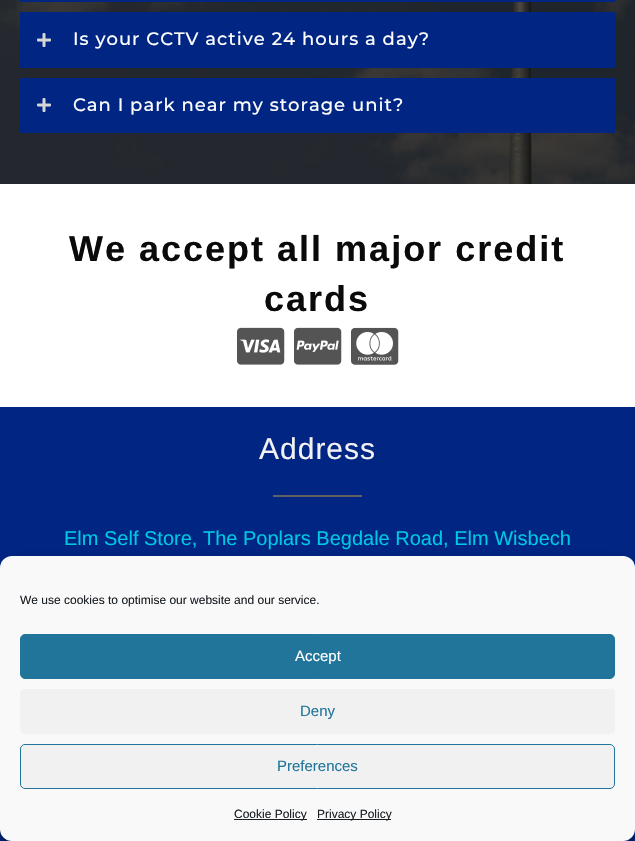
#include "include/core/SkBlurTypes.h"
#include "include/core/SkCanvas.h"
#include "include/core/SkData.h"
#include "include/core/SkFont.h"
#include "include/core/SkFontMgr.h"
#include "include/core/SkImage.h"
#include "include/core/SkMaskFilter.h"
#include "include/core/SkPaint.h"
#include "include/core/SkPathBuilder.h"
#include "include/core/SkTextBlob.h"
#include "include/effects/SkDashPathEffect.h"
#include "include/effects/SkGradientShader.h"
#include "include/utils/SkParsePath.h"

extern sk_sp<SkFontMgr> fontMgr;

void draw(SkCanvas* canvas) {
  SkPaint p;
  p.setAntiAlias(true);
  auto spacedText = [&](const char* s, float x, float y, const SkFont& font, const SkPaint& ink, float letter, float word) {
    std::vector<SkGlyphID> glyphs(font.countText(s, strlen(s), SkTextEncoding::kUTF8));
    std::vector<float> xs(glyphs.size());
    font.textToGlyphs(s, strlen(s), SkTextEncoding::kUTF8, glyphs);
    font.getXPos(glyphs, xs, x);
    float extra = 0;
    for (size_t i = 0; i < glyphs.size(); i++) {
      xs[i] += extra;
      extra += letter + word * (glyphs[i] == font.unicharToGlyph(' '));
    }
    canvas->drawTextBlob(SkTextBlob::MakeFromPosHGlyphs(glyphs, xs, y, font), 0, 0, ink);
  };
  canvas->clear(SK_ColorWHITE);
  canvas->drawImageRect(SkImages::DeferredFromEncodedData(SkData::MakeFromFileName("images/1.png")), SkRect::MakeLTRB(0, 0, 635, 184), SkSamplingOptions());
  p.setColor(SkColorSetRGB(0, 37, 131));
  canvas->drawRect(SkRect::MakeLTRB(20, 0, 615, 2), p);
  canvas->drawRect(SkRect::MakeLTRB(20, 12, 615, 68), p);
  canvas->drawImageRect(SkImages::DeferredFromEncodedData(SkData::MakeFromFileName("images/2.png")), SkRect::MakeLTRB(37, 33, 51, 47), SkSamplingOptions());
  canvas->drawRect(SkRect::MakeLTRB(20, 78, 615, 133), p);
  canvas->drawImageRect(SkImages::DeferredFromEncodedData(SkData::MakeFromFileName("images/2.png")), SkRect::MakeLTRB(37, 98, 51, 112), SkSamplingOptions());
  canvas->drawImageRect(SkImages::DeferredFromEncodedData(SkData::MakeFromFileName("images/3.png")), SkRect::MakeLTRB(237, 327, 285, 365), SkSamplingOptions());
  canvas->drawImageRect(SkImages::DeferredFromEncodedData(SkData::MakeFromFileName("images/4.png")), SkRect::MakeLTRB(294, 327, 342, 365), SkSamplingOptions());
  canvas->drawImageRect(SkImages::DeferredFromEncodedData(SkData::MakeFromFileName("images/5.png")), SkRect::MakeLTRB(351, 327, 399, 365), SkSamplingOptions());
  canvas->drawRect(SkRect::MakeLTRB(0, 407, 635, 568), p);
  p.setColor(SkColorSetRGB(97, 97, 100));
  canvas->drawRect(SkRect::MakeLTRB(273, 495, 362, 497), p);
  p.setColor(SkColorSetRGB(0, 37, 131));
  canvas->drawRect(SkRect::MakeLTRB(0, 829, 635, 841), p);
  p.setColor(SkColorSetARGB(59, 0, 0, 0));
  p.setMaskFilter(SkMaskFilter::MakeBlur(kNormal_SkBlurStyle, 3));
  canvas->drawRoundRect(SkRect::MakeLTRB(0, 562, 635, 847), 12, 12, p);
  p.setMaskFilter(nullptr);
  p.setColor(SkColorSetARGB(48, 0, 0, 0));
  p.setMaskFilter(SkMaskFilter::MakeBlur(kNormal_SkBlurStyle, 10));
  canvas->drawRoundRect(SkRect::MakeLTRB(0, 566, 635, 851), 12, 12, p);
  p.setMaskFilter(nullptr);
  p.setColor(SkColorSetRGB(249, 249, 249));
  canvas->drawRoundRect(SkRect::MakeLTRB(0, 556, 635, 841), 12, 12, p);
  p.setColor(SkColorSetRGB(33, 117, 155));
  canvas->drawRoundRect(SkRect::MakeLTRB(20.5f, 634.5f, 614.5f, 678.5f), 4.5f, 4.5f, p);
  p.setStyle(SkPaint::kStroke_Style);
  p.setStrokeWidth(1);
  canvas->drawRoundRect(SkRect::MakeLTRB(20.5f, 634.5f, 614.5f, 678.5f), 4.5f, 4.5f, p);
  p.setStyle(SkPaint::kFill_Style);
  p.setColor(SkColorSetRGB(241, 241, 241));
  canvas->drawRoundRect(SkRect::MakeLTRB(20, 689, 615, 734), 5, 5, p);
  canvas->drawRoundRect(SkRect::MakeLTRB(20.5f, 744.5f, 614.5f, 788.5f), 4.5f, 4.5f, p);
  p.setStyle(SkPaint::kStroke_Style);
  p.setColor(SkColorSetRGB(33, 117, 155));
  canvas->drawRoundRect(SkRect::MakeLTRB(20.5f, 744.5f, 614.5f, 788.5f), 4.5f, 4.5f, p);
  p.setStyle(SkPaint::kFill_Style);
  p.setColor(SkColorSetRGB(25, 30, 35));
  canvas->drawRect(SkRect::MakeLTRB(234, 819, 307, 820), p);
  canvas->drawRect(SkRect::MakeLTRB(317, 819, 391, 820), p);
  SkFont font1(fontMgr->matchFamilyStyle("Montserrat", SkFontStyle(500, SkFontStyle::kNormal_Width, SkFontStyle::kUpright_Slant)), 18);
  font1.setSubpixel(true);
  p.setColor(SK_ColorWHITE);
  spacedText("Is your CCTV active 24 hours a day?", 73, 45, font1, p, 1, 0);
  spacedText("Can I park near my storage unit?", 73, 111, font1, p, 1, 0);
  SkFont font2(fontMgr->matchFamilyStyle("Liberation Sans", SkFontStyle::Bold()), 36);
  font2.setSubpixel(true);
  p.setColor(SkColorSetRGB(10, 10, 10));
  spacedText("We accept all major credit", 69, 261, font2, p, 2, 0);
  spacedText("cards", 264, 311, font2, p, 2, 0);
  SkFont font3(fontMgr->matchFamilyStyle("Liberation Sans", SkFontStyle::Normal()), 30);
  font3.setSubpixel(true);
  p.setColor(SkColorSetRGB(242, 242, 242));
  spacedText("Address", 259, 459, font3, p, 1, 0);
  SkFont font4(fontMgr->matchFamilyStyle("Liberation Sans", SkFontStyle::Normal()), 20);
  font4.setSubpixel(true);
  p.setColor(SkColorSetRGB(0, 200, 226));
  canvas->drawString("Elm Self Store, The Poplars Begdale Road, Elm Wisbech", 64, 545, font4, p);
  SkFont font5(fontMgr->matchFamilyStyle("Liberation Sans", SkFontStyle::Normal()), 12);
  font5.setSubpixel(true);
  p.setColor(SkColorSetRGB(25, 30, 35));
  canvas->drawString("We use cookies to optimise our website and our service.", 20, 604, font5, p);
  SkFont font6(fontMgr->matchFamilyStyle("Liberation Sans", SkFontStyle::Normal()), 15);
  font6.setSubpixel(true);
  p.setColor(SK_ColorWHITE);
  canvas->drawString("Accept", 295, 661, font6, p);
  p.setColor(SkColorSetRGB(33, 117, 155));
  canvas->drawString("Deny", 300, 716, font6, p);
  canvas->drawString("Preferences", 277, 771, font6, p);
  p.setColor(SkColorSetRGB(25, 30, 35));
  canvas->drawString("Cookie Policy", 234, 818, font5, p);
  canvas->drawString("Privacy Policy", 317, 818, font5, p);
}
